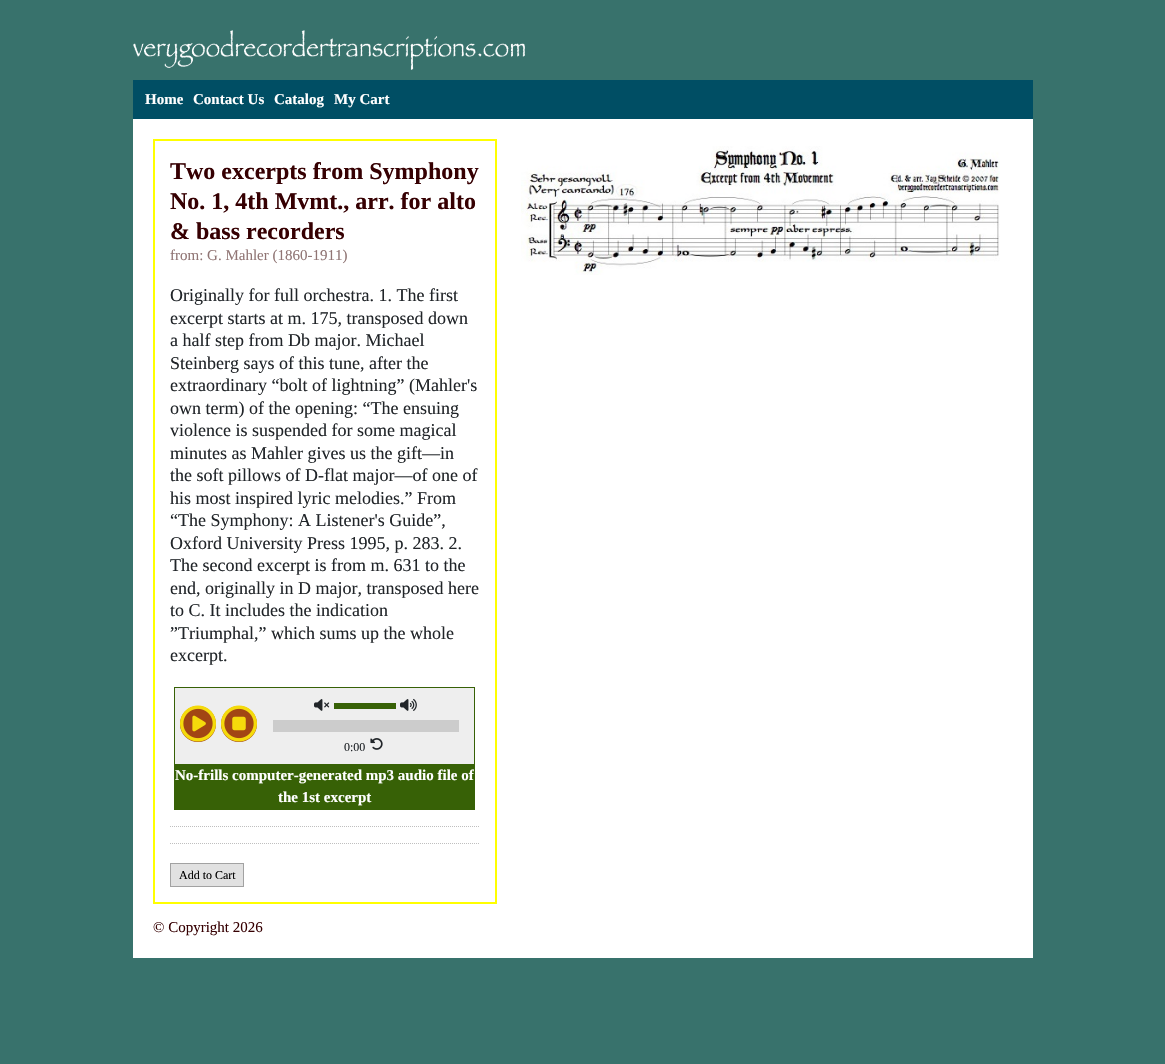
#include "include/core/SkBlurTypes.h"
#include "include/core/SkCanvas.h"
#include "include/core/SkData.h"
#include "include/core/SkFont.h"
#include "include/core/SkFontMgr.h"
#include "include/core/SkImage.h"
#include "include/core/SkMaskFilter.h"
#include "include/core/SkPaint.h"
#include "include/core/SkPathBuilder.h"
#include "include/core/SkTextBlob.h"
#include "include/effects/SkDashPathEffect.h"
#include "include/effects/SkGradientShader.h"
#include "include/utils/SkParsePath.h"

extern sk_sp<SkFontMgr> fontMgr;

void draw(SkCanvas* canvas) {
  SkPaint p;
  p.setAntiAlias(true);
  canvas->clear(SkColorSetRGB(56, 114, 108));
  canvas->drawImageRect(SkImages::DeferredFromEncodedData(SkData::MakeFromFileName("images/1.png")), SkRect::MakeLTRB(133, 30, 525, 70), SkSamplingOptions());
  p.setColor(SkColorSetRGB(0, 78, 100));
  canvas->drawRect(SkRect::MakeLTRB(133, 80, 1033, 119), p);
  p.setColor(SK_ColorWHITE);
  canvas->drawRect(SkRect::MakeLTRB(133, 119, 1033, 958), p);
  p.setStyle(SkPaint::kStroke_Style);
  p.setStrokeWidth(2);
  p.setColor(SkColorSetRGB(255, 255, 0));
  canvas->drawRect(SkRect::MakeLTRB(154, 140, 496, 903), p);
  p.setStrokeWidth(1);
  p.setColor(SkColorSetRGB(55, 97, 6));
  canvas->drawRect(SkRect::MakeLTRB(174.5f, 687.5f, 474.5f, 809.5f), p);
  p.setStyle(SkPaint::kFill_Style);
  p.setColor(SkColorSetRGB(238, 238, 238));
  canvas->drawRect(SkRect::MakeLTRB(175, 688, 474, 764), p);
  p.setColor(SkColorSetRGB(162, 70, 20));
  canvas->drawCircle(198, 724, 18, p);
  canvas->drawImageRect(SkImages::DeferredFromEncodedData(SkData::MakeFromFileName("images/2.png")), SkRect::MakeLTRB(180, 705, 216, 742), SkSamplingOptions());
  canvas->drawCircle(239, 724, 18, p);
  canvas->drawImageRect(SkImages::DeferredFromEncodedData(SkData::MakeFromFileName("images/3.png")), SkRect::MakeLTRB(221, 705, 257, 742), SkSamplingOptions());
  canvas->drawImageRect(SkImages::DeferredFromEncodedData(SkData::MakeFromFileName("images/4.png")), SkRect::MakeLTRB(314, 699, 330, 711), SkSamplingOptions());
  p.setColor(SkColorSetRGB(55, 97, 6));
  canvas->drawRect(SkRect::MakeLTRB(334, 703, 396, 709), p);
  canvas->drawImageRect(SkImages::DeferredFromEncodedData(SkData::MakeFromFileName("images/5.png")), SkRect::MakeLTRB(400, 698, 417, 711), SkSamplingOptions());
  p.setColor(SkColorSetRGB(204, 204, 204));
  canvas->drawRect(SkRect::MakeLTRB(273, 720, 459, 732), p);
  canvas->drawImageRect(SkImages::DeferredFromEncodedData(SkData::MakeFromFileName("images/6.png")), SkRect::MakeLTRB(370, 738, 383, 750), SkSamplingOptions());
  p.setColor(SkColorSetRGB(55, 97, 6));
  canvas->drawRect(SkRect::MakeLTRB(175, 764, 474, 809), p);
  p.setStyle(SkPaint::kStroke_Style);
  p.setColor(SkColorSetRGB(191, 191, 191));
  p.setPathEffect(SkDashPathEffect::Make({{1, 1}}, 0));
  canvas->drawPath(SkPathBuilder().moveTo(170, 826.5f).lineTo(480, 826.5f).detach(), p);
  p.setPathEffect(nullptr);
  p.setPathEffect(SkDashPathEffect::Make({{1, 1}}, 0));
  canvas->drawPath(SkPathBuilder().moveTo(170, 843.5f).lineTo(480, 843.5f).detach(), p);
  p.setPathEffect(nullptr);
  p.setStyle(SkPaint::kFill_Style);
  p.setColor(SkColorSetRGB(225, 225, 225));
  canvas->drawRect(SkRect::MakeLTRB(170.5f, 863.5f, 243.5f, 886.5f), p);
  p.setStyle(SkPaint::kStroke_Style);
  p.setColor(SkColorSetRGB(162, 162, 162));
  canvas->drawRect(SkRect::MakeLTRB(170.5f, 863.5f, 243.5f, 886.5f), p);
  canvas->drawImageRect(SkImages::DeferredFromEncodedData(SkData::MakeFromFileName("images/7.png")), SkRect::MakeLTRB(521, 146, 1000, 275), SkSamplingOptions());
  SkFont font1(fontMgr->matchFamilyStyle("Liberation Serif", SkFontStyle::Bold()), 15);
  font1.setSubpixel(true);
  p.setStyle(SkPaint::kFill_Style);
  p.setColor(SK_ColorWHITE);
  canvas->drawString("Home", 145, 104, font1, p);
  canvas->drawString("Contact Us", 193, 104, font1, p);
  canvas->drawString("Catalog", 274, 104, font1, p);
  canvas->drawString("My Cart", 334, 104, font1, p);
  SkFont font2(fontMgr->matchFamilyStyle("Liberation Serif", SkFontStyle::Bold()), 24);
  font2.setSubpixel(true);
  p.setColor(SkColorSetRGB(54, 0, 2));
  canvas->drawString("Two excerpts from Symphony", 170, 179, font2, p);
  canvas->drawString("No. 1, 4th Mvmt., arr. for alto", 170, 209, font2, p);
  canvas->drawString("& bass recorders", 170, 239, font2, p);
  SkFont font3(fontMgr->matchFamilyStyle("Liberation Serif", SkFontStyle::Normal()), 15);
  font3.setSubpixel(true);
  p.setColor(SkColorSetRGB(144, 117, 116));
  canvas->drawString("from: G. Mahler (1860-1911)", 170, 260, font3, p);
  SkFont font4(fontMgr->matchFamilyStyle("Liberation Serif", SkFontStyle::Normal()), 18);
  font4.setSubpixel(true);
  p.setColor(SkColorSetRGB(33, 37, 41));
  canvas->drawString("Originally for full orchestra. 1. The first", 170, 301, font4, p);
  canvas->drawString("excerpt starts at m. 175, transposed down", 170, 324, font4, p);
  canvas->drawString("a half step from Db major. Michael", 170, 346, font4, p);
  canvas->drawString("Steinberg says of this tune, after the", 170, 369, font4, p);
  canvas->drawString("extraordinary “bolt of lightning” (Mahler's", 170, 391, font4, p);
  canvas->drawString("own term) of the opening: “The ensuing", 170, 414, font4, p);
  canvas->drawString("violence is suspended for some magical", 170, 436, font4, p);
  canvas->drawString("minutes as Mahler gives us the gift—in", 170, 459, font4, p);
  canvas->drawString("the soft pillows of D-flat major—of one of", 170, 481, font4, p);
  canvas->drawString("his most inspired lyric melodies.” From", 170, 504, font4, p);
  canvas->drawString("“The Symphony: A Listener's Guide”,", 170, 526, font4, p);
  canvas->drawString("Oxford University Press 1995, p. 283. 2.", 170, 549, font4, p);
  canvas->drawString("The second excerpt is from m. 631 to the", 170, 571, font4, p);
  canvas->drawString("end, originally in D major, transposed here", 170, 594, font4, p);
  canvas->drawString("to C. It includes the indication", 170, 616, font4, p);
  canvas->drawString("”Triumphal,” which sums up the whole", 170, 639, font4, p);
  canvas->drawString("excerpt.", 170, 661, font4, p);
  SkFont font5(fontMgr->matchFamilyStyle("Liberation Serif", SkFontStyle::Normal()), 12);
  font5.setSubpixel(true);
  canvas->drawString("0:00", 344, 751, font5, p);
  p.setColor(SK_ColorWHITE);
  canvas->drawString("No-frills computer-generated mp3 audio file of", 175, 780, font1, p);
  canvas->drawString("the 1st excerpt", 278, 802, font1, p);
  p.setColor(SK_ColorBLACK);
  canvas->drawString("Add to Cart", 179, 879, font5, p);
  p.setColor(SkColorSetRGB(54, 0, 2));
  canvas->drawString("© Copyright 2026", 153, 932, font3, p);
}
